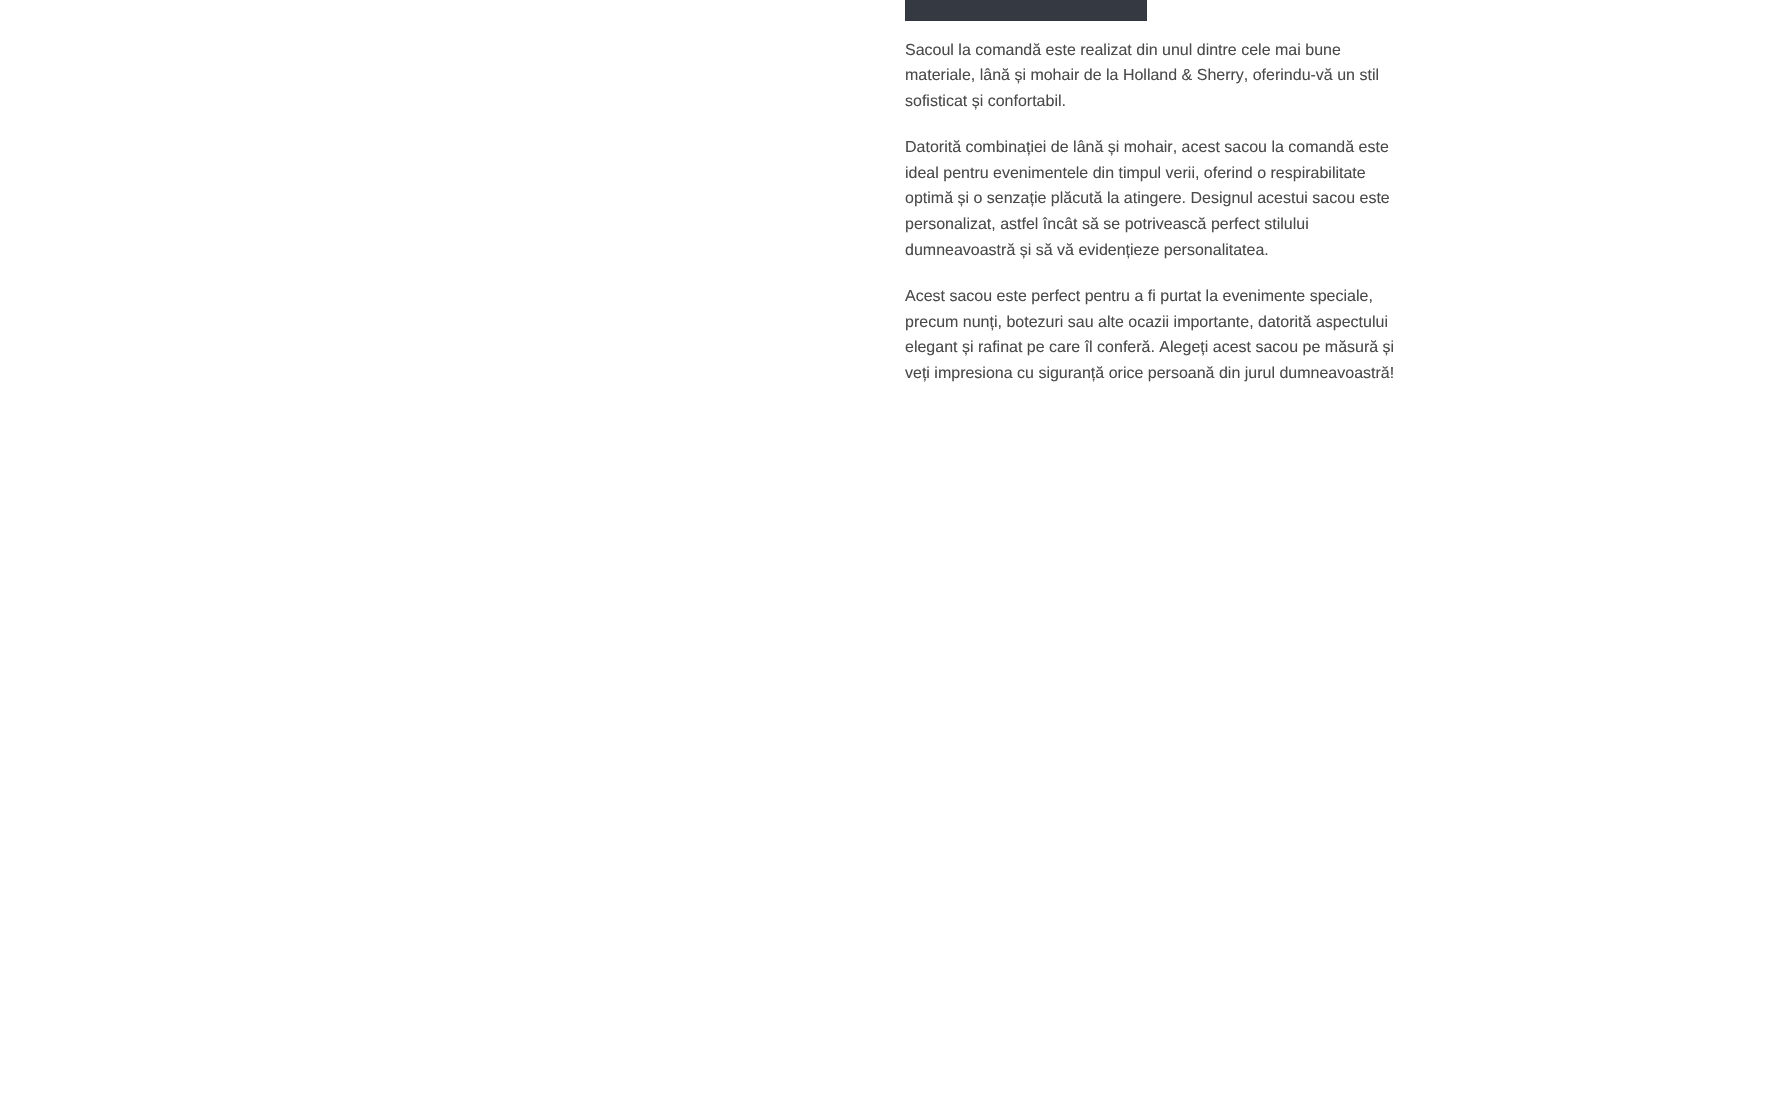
#include "include/core/SkBlurTypes.h"
#include "include/core/SkCanvas.h"
#include "include/core/SkData.h"
#include "include/core/SkFont.h"
#include "include/core/SkFontMgr.h"
#include "include/core/SkImage.h"
#include "include/core/SkMaskFilter.h"
#include "include/core/SkPaint.h"
#include "include/core/SkPathBuilder.h"
#include "include/core/SkTextBlob.h"
#include "include/effects/SkDashPathEffect.h"
#include "include/effects/SkGradientShader.h"
#include "include/utils/SkParsePath.h"

extern sk_sp<SkFontMgr> fontMgr;

void draw(SkCanvas* canvas) {
  SkPaint p;
  p.setAntiAlias(true);
  canvas->clear(SK_ColorWHITE);
  p.setColor(SkColorSetRGB(53, 57, 66));
  canvas->drawRect(SkRect::MakeLTRB(905.5f, -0.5f, 1146.5f, 20.5f), p);
  p.setStyle(SkPaint::kStroke_Style);
  p.setStrokeWidth(1);
  p.setColor(SkColorSetRGB(50, 54, 63));
  canvas->drawRect(SkRect::MakeLTRB(905.5f, -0.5f, 1146.5f, 20.5f), p);
  SkFont font1(fontMgr->matchFamilyStyle("Liberation Sans", SkFontStyle::Normal()), 16);
  font1.setSubpixel(true);
  p.setStyle(SkPaint::kFill_Style);
  p.setColor(SkColorSetRGB(74, 74, 74));
  canvas->drawString("Sacoul la comandă este realizat din unul dintre cele mai bune", 905, 55, font1, p);
  canvas->drawString("materiale, lână și mohair de la Holland & Sherry, oferindu-vă un stil", 905, 80, font1, p);
  canvas->drawString("sofisticat și confortabil.", 905, 106, font1, p);
  canvas->drawString("Datorită combinației de lână și mohair, acest sacou la comandă este", 905, 152, font1, p);
  canvas->drawString("ideal pentru evenimentele din timpul verii, oferind o respirabilitate", 905, 178, font1, p);
  canvas->drawString("optimă și o senzație plăcută la atingere. Designul acestui sacou este", 905, 203, font1, p);
  canvas->drawString("personalizat, astfel încât să se potrivească perfect stilului", 905, 229, font1, p);
  canvas->drawString("dumneavoastră și să vă evidențieze personalitatea.", 905, 255, font1, p);
  canvas->drawString("Acest sacou este perfect pentru a fi purtat la evenimente speciale,", 905, 301, font1, p);
  canvas->drawString("precum nunți, botezuri sau alte ocazii importante, datorită aspectului", 905, 327, font1, p);
  canvas->drawString("elegant și rafinat pe care îl conferă. Alegeți acest sacou pe măsură și", 905, 352, font1, p);
  canvas->drawString("veți impresiona cu siguranță orice persoană din jurul dumneavoastră!", 905, 378, font1, p);
}
